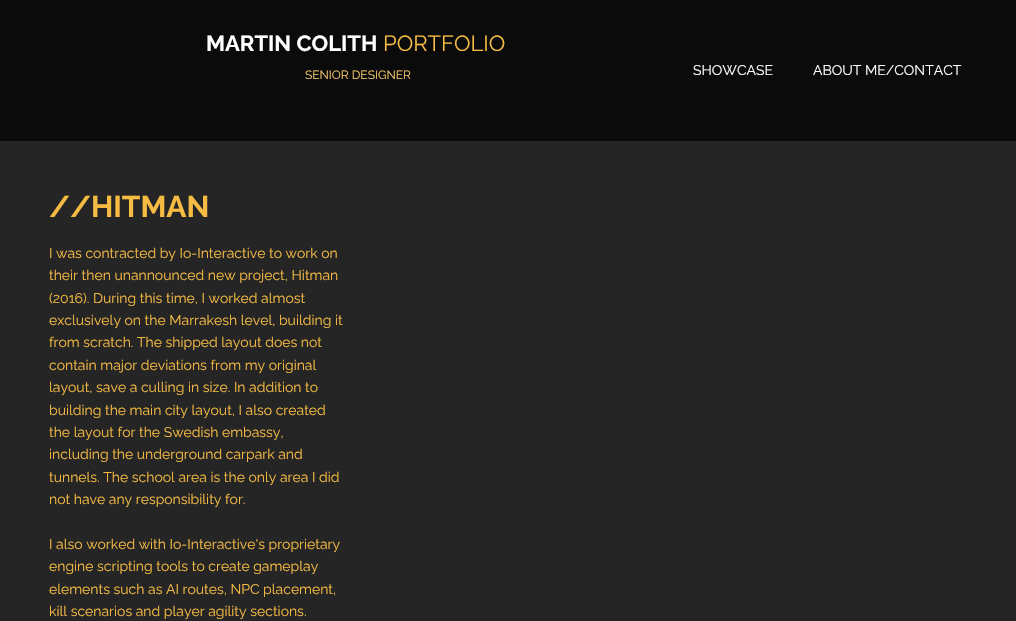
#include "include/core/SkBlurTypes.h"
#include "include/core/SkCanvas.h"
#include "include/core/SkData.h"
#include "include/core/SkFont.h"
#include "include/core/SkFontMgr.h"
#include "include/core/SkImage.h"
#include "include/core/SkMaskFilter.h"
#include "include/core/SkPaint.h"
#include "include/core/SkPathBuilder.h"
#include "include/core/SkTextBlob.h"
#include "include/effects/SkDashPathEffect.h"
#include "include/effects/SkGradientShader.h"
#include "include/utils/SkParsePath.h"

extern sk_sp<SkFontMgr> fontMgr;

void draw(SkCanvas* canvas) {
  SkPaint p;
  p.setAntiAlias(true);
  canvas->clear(SkColorSetRGB(37, 37, 37));
  p.setColor(SkColorSetRGB(11, 11, 11));
  canvas->drawRect(SkRect::MakeLTRB(0, 0, 1016, 141), p);
  SkFont font1(fontMgr->matchFamilyStyle("Raleway", SkFontStyle::Bold()), 22);
  font1.setSubpixel(true);
  p.setColor(SK_ColorWHITE);
  canvas->drawString("MARTIN COLITH", 206, 51, font1, p);
  SkFont font2(fontMgr->matchFamilyStyle("Raleway", SkFontStyle::Normal()), 22);
  font2.setSubpixel(true);
  p.setColor(SkColorSetRGB(246, 187, 67));
  canvas->drawString("PORTFOLIO", 383, 51, font2, p);
  SkFont font3(fontMgr->matchFamilyStyle("Raleway", SkFontStyle::Normal()), 12);
  font3.setSubpixel(true);
  p.setColor(SkColorSetRGB(243, 199, 110));
  canvas->drawString("SENIOR DESIGNER", 305, 79, font3, p);
  SkFont font4(fontMgr->matchFamilyStyle("Raleway", SkFontStyle::Normal()), 14);
  font4.setSubpixel(true);
  p.setColor(SK_ColorWHITE);
  canvas->drawString("SHOWCASE", 693, 75, font4, p);
  canvas->drawString("ABOUT ME/CONTACT", 813, 75, font4, p);
  SkFont font5(fontMgr->matchFamilyStyle("Raleway", SkFontStyle::Bold()), 30);
  font5.setSubpixel(true);
  p.setColor(SkColorSetRGB(246, 187, 67));
  canvas->drawString("//HITMAN", 49, 217, font5, p);
  canvas->drawString("I was contracted by Io-Interactive to work on", 49, 258, font4, p);
  canvas->drawString("their then unannounced new project, Hitman", 49, 280, font4, p);
  canvas->drawString("(2016). During this time, I worked almost", 49, 303, font4, p);
  canvas->drawString("exclusively on the Marrakesh level, building it", 49, 325, font4, p);
  canvas->drawString("from scratch. The shipped layout does not", 49, 347, font4, p);
  canvas->drawString("contain major deviations from my original", 49, 370, font4, p);
  canvas->drawString("layout, save a culling in size. In addition to", 49, 392, font4, p);
  canvas->drawString("building the main city layout, I also created", 49, 415, font4, p);
  canvas->drawString("the layout for the Swedish embassy,", 49, 437, font4, p);
  canvas->drawString("including the underground carpark and", 49, 459, font4, p);
  canvas->drawString("tunnels. The school area is the only area I did", 49, 482, font4, p);
  canvas->drawString("not have any responsibility for.", 49, 504, font4, p);
  canvas->drawString("I also worked with Io-Interactive's proprietary", 49, 549, font4, p);
  canvas->drawString("engine scripting tools to create gameplay", 49, 571, font4, p);
  canvas->drawString("elements such as AI routes, NPC placement,", 49, 594, font4, p);
  canvas->drawString("kill scenarios and player agility sections.", 49, 616, font4, p);
}
